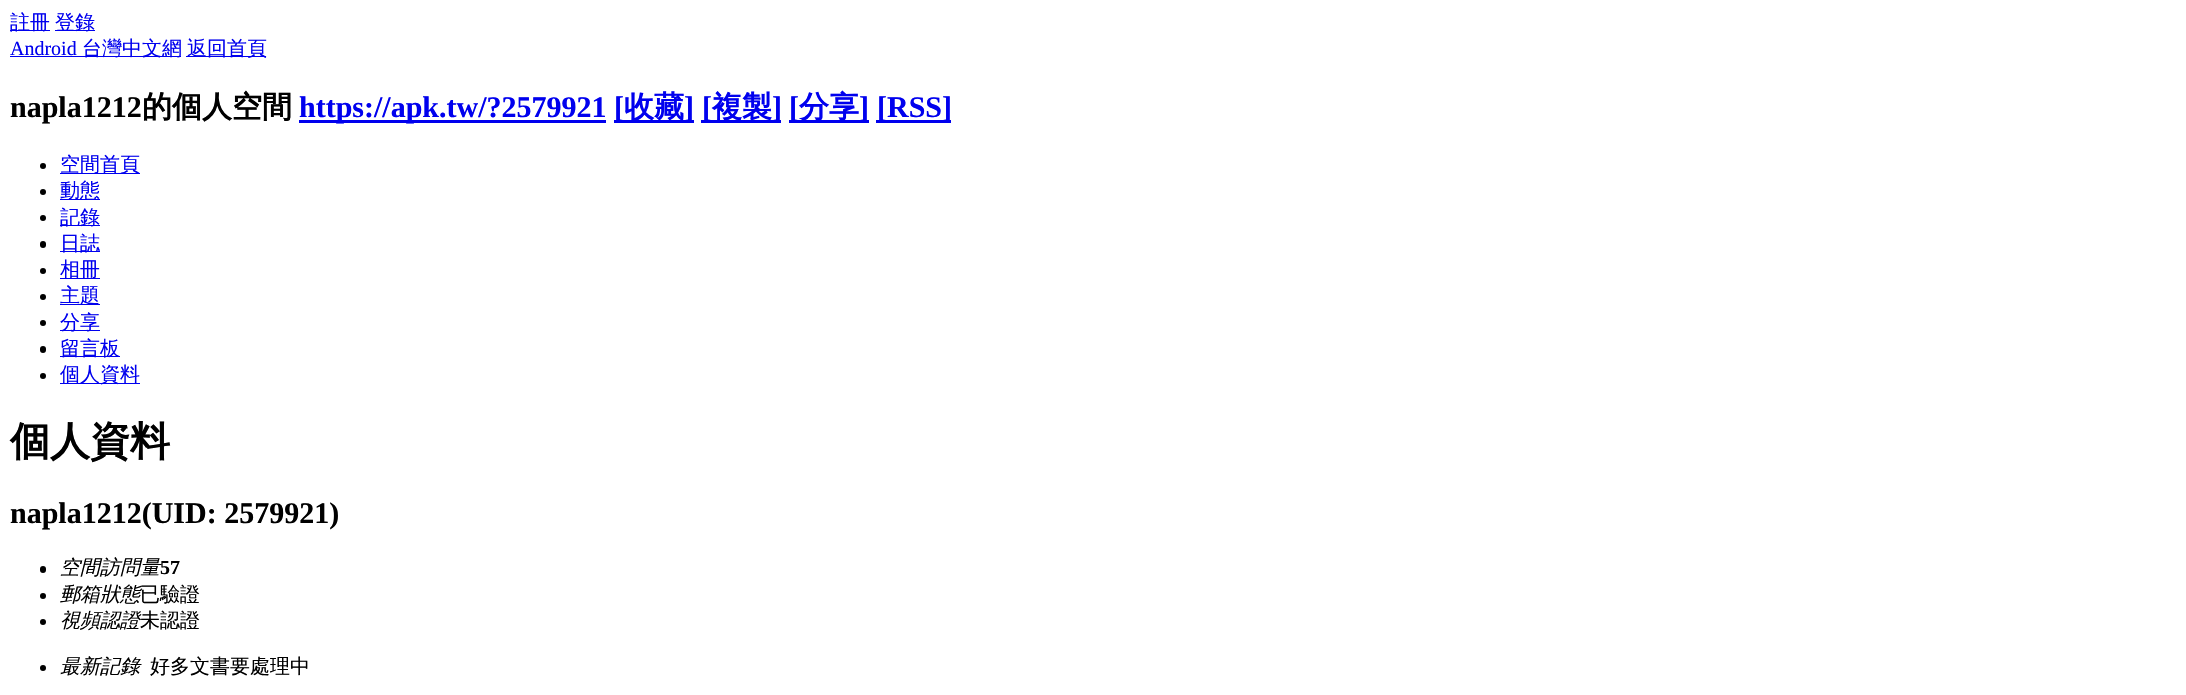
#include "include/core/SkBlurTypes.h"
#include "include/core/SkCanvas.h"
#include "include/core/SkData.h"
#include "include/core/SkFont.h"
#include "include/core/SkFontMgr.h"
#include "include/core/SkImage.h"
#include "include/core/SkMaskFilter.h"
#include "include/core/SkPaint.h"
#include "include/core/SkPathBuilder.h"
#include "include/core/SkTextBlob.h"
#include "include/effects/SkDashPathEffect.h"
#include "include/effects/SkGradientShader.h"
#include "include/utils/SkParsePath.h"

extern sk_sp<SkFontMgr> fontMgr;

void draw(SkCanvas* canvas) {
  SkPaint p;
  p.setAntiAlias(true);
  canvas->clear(SK_ColorWHITE);
  p.setColor(SkColorSetRGB(0, 0, 238));
  canvas->drawRect(SkRect::MakeLTRB(10, 30, 50, 31), p);
  canvas->drawRect(SkRect::MakeLTRB(55, 30, 95, 31), p);
  canvas->drawRect(SkRect::MakeLTRB(10, 56, 181, 57), p);
  canvas->drawRect(SkRect::MakeLTRB(186, 56, 266, 57), p);
  canvas->drawRect(SkRect::MakeLTRB(299, 120, 606, 123), p);
  canvas->drawRect(SkRect::MakeLTRB(614, 120, 694, 123), p);
  canvas->drawRect(SkRect::MakeLTRB(701, 120, 781, 123), p);
  canvas->drawRect(SkRect::MakeLTRB(789, 120, 869, 123), p);
  canvas->drawRect(SkRect::MakeLTRB(876, 120, 951, 123), p);
  p.setColor(SK_ColorBLACK);
  canvas->drawCircle(43, 166, 3, p);
  p.setColor(SkColorSetRGB(0, 0, 238));
  canvas->drawRect(SkRect::MakeLTRB(60, 173, 140, 174), p);
  p.setColor(SK_ColorBLACK);
  canvas->drawCircle(43, 192, 3, p);
  p.setColor(SkColorSetRGB(0, 0, 238));
  canvas->drawRect(SkRect::MakeLTRB(60, 199, 100, 200), p);
  p.setColor(SK_ColorBLACK);
  canvas->drawCircle(43, 218, 3, p);
  p.setColor(SkColorSetRGB(0, 0, 238));
  canvas->drawRect(SkRect::MakeLTRB(60, 225, 100, 226), p);
  p.setColor(SK_ColorBLACK);
  canvas->drawRoundRect(SkRect::MakeLTRB(40, 241, 46, 248), 3, 3, p);
  p.setColor(SkColorSetRGB(0, 0, 238));
  canvas->drawRect(SkRect::MakeLTRB(60, 251, 100, 252), p);
  p.setColor(SK_ColorBLACK);
  canvas->drawCircle(43, 271, 3, p);
  p.setColor(SkColorSetRGB(0, 0, 238));
  canvas->drawRect(SkRect::MakeLTRB(60, 278, 100, 279), p);
  p.setColor(SK_ColorBLACK);
  canvas->drawCircle(43, 297, 3, p);
  p.setColor(SkColorSetRGB(0, 0, 238));
  canvas->drawRect(SkRect::MakeLTRB(60, 304, 100, 305), p);
  p.setColor(SK_ColorBLACK);
  canvas->drawCircle(43, 323, 3, p);
  p.setColor(SkColorSetRGB(0, 0, 238));
  canvas->drawRect(SkRect::MakeLTRB(60, 330, 100, 331), p);
  p.setColor(SK_ColorBLACK);
  canvas->drawRoundRect(SkRect::MakeLTRB(40, 346, 46, 353), 3, 3, p);
  p.setColor(SkColorSetRGB(0, 0, 238));
  canvas->drawRect(SkRect::MakeLTRB(60, 356, 120, 357), p);
  p.setColor(SK_ColorBLACK);
  canvas->drawCircle(43, 376, 3, p);
  p.setColor(SkColorSetRGB(0, 0, 238));
  canvas->drawRect(SkRect::MakeLTRB(60, 383, 140, 384), p);
  p.setColor(SK_ColorBLACK);
  canvas->drawRoundRect(SkRect::MakeLTRB(40, 566, 46, 573), 3, 3, p);
  canvas->drawCircle(43, 596, 3, p);
  canvas->drawCircle(43, 622, 3, p);
  canvas->drawCircle(43, 668, 3, p);
  SkFont font1(fontMgr->matchFamilyStyle("WenQuanYi Zen Hei", SkFontStyle(500, SkFontStyle::kNormal_Width, SkFontStyle::kUpright_Slant)), 20);
  font1.setSubpixel(true);
  p.setColor(SkColorSetRGB(0, 0, 238));
  canvas->drawString("註冊", 10, 29, font1, p);
  canvas->drawString("登錄", 55, 29, font1, p);
  SkFont font2(fontMgr->matchFamilyStyle("Liberation Serif", SkFontStyle::Normal()), 20);
  font2.setSubpixel(true);
  canvas->drawString("Android", 10, 55, font2, p);
  canvas->drawString("台灣中文網", 82, 55, font1, p);
  canvas->drawString("返回首頁", 187, 55, font1, p);
  SkFont font3(fontMgr->matchFamilyStyle("Liberation Serif", SkFontStyle::Bold()), 30);
  font3.setSubpixel(true);
  p.setColor(SK_ColorBLACK);
  canvas->drawString("napla1212", 10, 117, font3, p);
  SkFont font4(fontMgr->matchFamilyStyle("WenQuanYi Zen Hei", SkFontStyle::Bold()), 30);
  font4.setSubpixel(true);
  canvas->drawString("的個人空間", 142, 117, font4, p);
  p.setColor(SkColorSetRGB(0, 0, 238));
  canvas->drawString("https://apk.tw/?2579921", 299, 117, font3, p);
  canvas->drawString("[", 614, 117, font3, p);
  canvas->drawString("收藏", 624, 117, font4, p);
  canvas->drawString("]", 684, 117, font3, p);
  canvas->drawString("[", 702, 117, font3, p);
  canvas->drawString("複製", 712, 117, font4, p);
  canvas->drawString("]", 772, 117, font3, p);
  canvas->drawString("[", 789, 117, font3, p);
  canvas->drawString("分享", 799, 117, font4, p);
  canvas->drawString("]", 859, 117, font3, p);
  canvas->drawString("[RSS]", 877, 117, font3, p);
  canvas->drawString("空間首頁", 60, 171, font1, p);
  canvas->drawString("動態", 60, 197, font1, p);
  canvas->drawString("記錄", 60, 224, font1, p);
  canvas->drawString("日誌", 60, 250, font1, p);
  canvas->drawString("相冊", 60, 276, font1, p);
  canvas->drawString("主題", 60, 302, font1, p);
  canvas->drawString("分享", 60, 329, font1, p);
  canvas->drawString("留言板", 60, 355, font1, p);
  canvas->drawString("個人資料", 60, 381, font1, p);
  SkFont font5(fontMgr->matchFamilyStyle("WenQuanYi Zen Hei", SkFontStyle::Bold()), 40);
  font5.setSubpixel(true);
  p.setColor(SK_ColorBLACK);
  canvas->drawString("個人資料", 10, 455, font5, p);
  canvas->drawString("napla1212(UID: 2579921)", 10, 523, font3, p);
  SkFont font6(fontMgr->matchFamilyStyle("WenQuanYi Zen Hei", SkFontStyle(500, SkFontStyle::kNormal_Width, SkFontStyle::kItalic_Slant)), 20);
  font6.setSubpixel(true);
  canvas->drawString("空間訪問量", 60, 574, font6, p);
  SkFont font7(fontMgr->matchFamilyStyle("Liberation Serif", SkFontStyle::Bold()), 20);
  font7.setSubpixel(true);
  canvas->drawString("57", 160, 574, font7, p);
  canvas->drawString("郵箱狀態", 60, 601, font6, p);
  canvas->drawString("已驗證", 140, 601, font1, p);
  canvas->drawString("視頻認證", 60, 627, font6, p);
  canvas->drawString("未認證", 140, 627, font1, p);
  canvas->drawString("最新記錄", 60, 673, font6, p);
  canvas->drawString("好多文書要處理中", 150, 673, font1, p);
}
